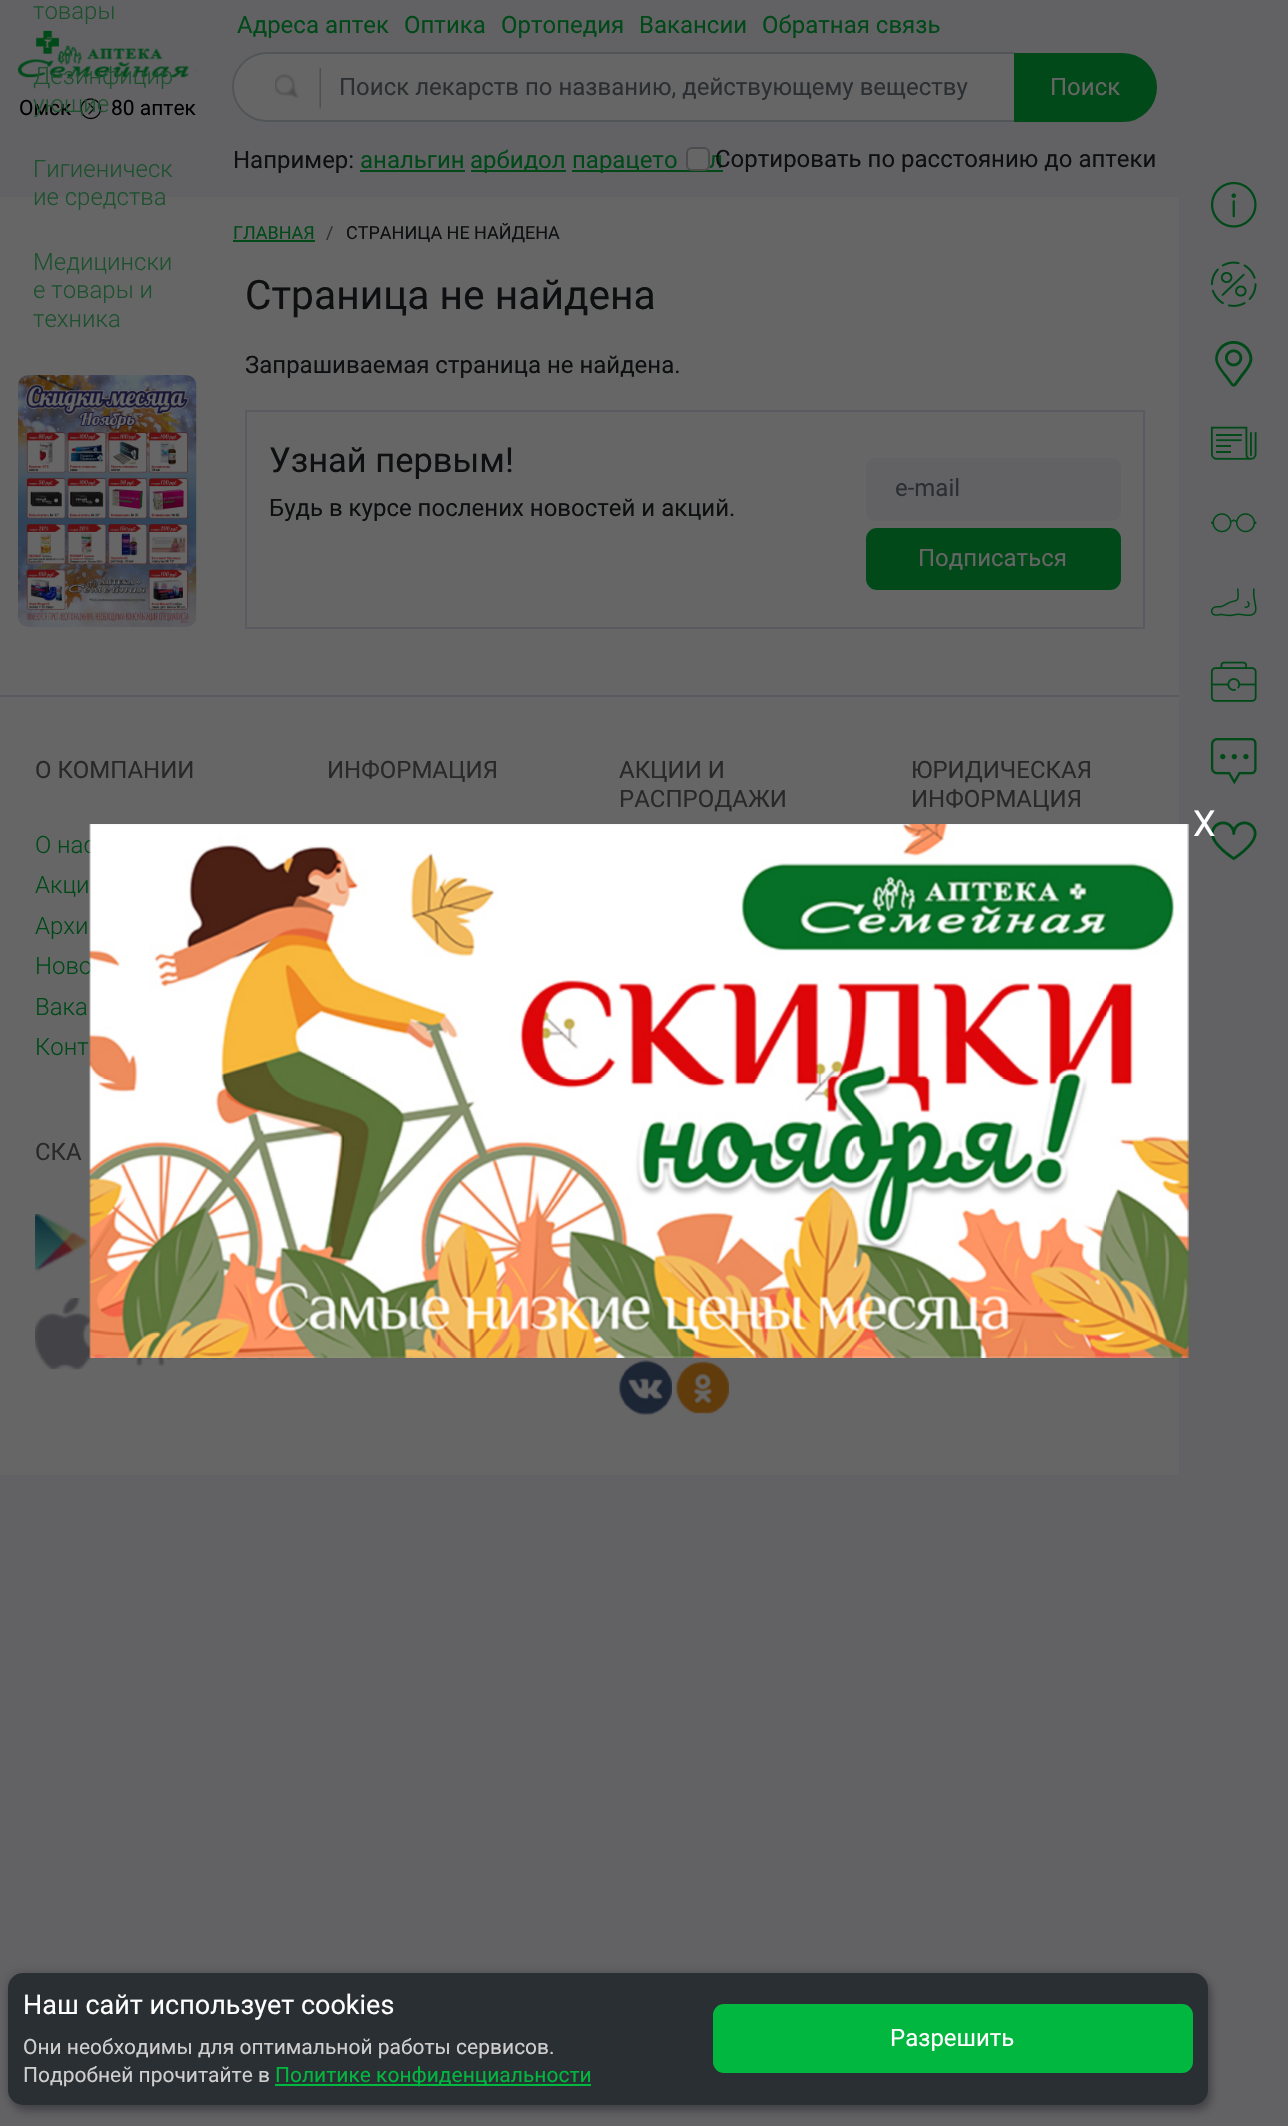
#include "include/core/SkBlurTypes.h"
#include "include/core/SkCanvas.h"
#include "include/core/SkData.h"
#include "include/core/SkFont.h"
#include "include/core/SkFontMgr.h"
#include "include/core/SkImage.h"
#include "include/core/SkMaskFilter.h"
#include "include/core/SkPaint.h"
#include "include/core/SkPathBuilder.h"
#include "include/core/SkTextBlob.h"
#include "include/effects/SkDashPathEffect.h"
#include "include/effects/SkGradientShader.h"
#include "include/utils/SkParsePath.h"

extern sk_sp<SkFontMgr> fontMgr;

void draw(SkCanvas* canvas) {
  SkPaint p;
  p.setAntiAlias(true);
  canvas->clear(SkColorSetRGB(98, 98, 101));
  p.setColor(SkColorSetRGB(102, 102, 102));
  canvas->drawRect(SkRect::MakeLTRB(0, 197, 1179, 695), p);
  canvas->drawImageRect(SkImages::DeferredFromEncodedData(SkData::MakeFromFileName("images/1.png")), SkRect::MakeLTRB(18, 375, 197, 627), SkSamplingOptions());
  p.setColor(SkColorSetRGB(1, 73, 25));
  canvas->drawRect(SkRect::MakeLTRB(233, 240, 315, 242), p);
  p.setStyle(SkPaint::kStroke_Style);
  p.setStrokeWidth(2);
  p.setColor(SkColorSetRGB(90, 90, 97));
  canvas->drawRect(SkRect::MakeLTRB(246, 411, 1144, 628), p);
  p.setStyle(SkPaint::kFill_Style);
  p.setColor(SkColorSetRGB(98, 98, 101));
  canvas->drawRoundRect(SkRect::MakeLTRB(866, 458, 1121, 521), 9, 9, p);
  p.setColor(SkColorSetRGB(1, 73, 25));
  canvas->drawRoundRect(SkRect::MakeLTRB(867, 529, 1120, 589), 10, 10, p);
  p.setStyle(SkPaint::kStroke_Style);
  canvas->drawRoundRect(SkRect::MakeLTRB(867, 529, 1120, 589), 10, 10, p);
  canvas->drawImageRect(SkImages::DeferredFromEncodedData(SkData::MakeFromFileName("images/3.png")), SkRect::MakeLTRB(1210, 181, 1257, 228), SkSamplingOptions());
  canvas->drawImageRect(SkImages::DeferredFromEncodedData(SkData::MakeFromFileName("images/4.png")), SkRect::MakeLTRB(1210, 261, 1257, 307), SkSamplingOptions());
  canvas->drawImageRect(SkImages::DeferredFromEncodedData(SkData::MakeFromFileName("images/5.png")), SkRect::MakeLTRB(1215, 340, 1253, 387), SkSamplingOptions());
  canvas->drawImageRect(SkImages::DeferredFromEncodedData(SkData::MakeFromFileName("images/6.png")), SkRect::MakeLTRB(1210, 426, 1257, 460), SkSamplingOptions());
  canvas->drawImageRect(SkImages::DeferredFromEncodedData(SkData::MakeFromFileName("images/7.png")), SkRect::MakeLTRB(1210, 513, 1257, 533), SkSamplingOptions());
  canvas->drawImageRect(SkImages::DeferredFromEncodedData(SkData::MakeFromFileName("images/8.png")), SkRect::MakeLTRB(1210, 588, 1257, 617), SkSamplingOptions());
  canvas->drawImageRect(SkImages::DeferredFromEncodedData(SkData::MakeFromFileName("images/9.png")), SkRect::MakeLTRB(1210, 661, 1257, 702), SkSamplingOptions());
  canvas->drawImageRect(SkImages::DeferredFromEncodedData(SkData::MakeFromFileName("images/10.png")), SkRect::MakeLTRB(1210, 738, 1257, 785), SkSamplingOptions());
  canvas->drawImageRect(SkImages::DeferredFromEncodedData(SkData::MakeFromFileName("images/11.png")), SkRect::MakeLTRB(1210, 821, 1257, 860), SkSamplingOptions());
  canvas->drawImageRect(SkImages::DeferredFromEncodedData(SkData::MakeFromFileName("images/12.png")), SkRect::MakeLTRB(18, 30, 197, 78), SkSamplingOptions());
  canvas->drawImageRect(SkImages::DeferredFromEncodedData(SkData::MakeFromFileName("images/13.png")), SkRect::MakeLTRB(80, 98, 102, 120), SkSamplingOptions());
  p.setStyle(SkPaint::kFill_Style);
  p.setColor(SkColorSetRGB(102, 102, 102));
  canvas->drawPath(SkPathBuilder().moveTo(267, 54).lineTo(1014, 54).lineTo(1014, 120).lineTo(267, 120).cubicTo(249, 120, 234, 105, 234, 87).cubicTo(234, 69, 249, 54, 267, 54).close().detach(), p);
  p.setColor(SkColorSetRGB(82, 85, 87));
  canvas->drawPath(SkPathBuilder(SkPathFillType::kEvenOdd).moveTo(267, 52).lineTo(1014, 52).lineTo(1014, 122).lineTo(267, 122).cubicTo(248, 122, 232, 106, 232, 87).cubicTo(232, 68, 248, 52, 267, 52).close().moveTo(267, 54).lineTo(1014, 54).lineTo(1014, 120).lineTo(267, 120).cubicTo(249, 120, 234, 105, 234, 87).cubicTo(234, 69, 249, 54, 267, 54).close().detach(), p);
  canvas->drawImageRect(SkImages::DeferredFromEncodedData(SkData::MakeFromFileName("images/14.png")), SkRect::MakeLTRB(275, 68, 321, 110), SkSamplingOptions());
  p.setColor(SkColorSetRGB(1, 73, 25));
  canvas->drawPath(SkPathBuilder().moveTo(1015, 54).lineTo(1122.5f, 54).cubicTo(1141, 54, 1156, 69, 1156, 87.5f).cubicTo(1156, 106, 1141, 121, 1122.5f, 121).lineTo(1015, 121).close().detach(), p);
  p.setStyle(SkPaint::kStroke_Style);
  canvas->drawPath(SkPathBuilder().moveTo(1015, 54).lineTo(1122.5f, 54).cubicTo(1141, 54, 1156, 69, 1156, 87.5f).cubicTo(1156, 106, 1141, 121, 1122.5f, 121).lineTo(1015, 121).close().detach(), p);
  p.setStyle(SkPaint::kFill_Style);
  canvas->drawRect(SkRect::MakeLTRB(360, 170, 465, 172), p);
  canvas->drawRect(SkRect::MakeLTRB(471, 170, 566, 172), p);
  canvas->drawRect(SkRect::MakeLTRB(572, 170, 723, 172), p);
  p.setColor(SkColorSetRGB(102, 102, 102));
  canvas->drawRect(SkRect::MakeLTRB(0, 697, 1179, 1475), p);
  p.setColor(SkColorSetRGB(90, 90, 97));
  canvas->drawRect(SkRect::MakeLTRB(0, 695, 1179, 697), p);
  canvas->drawImageRect(SkImages::DeferredFromEncodedData(SkData::MakeFromFileName("images/15.png")), SkRect::MakeLTRB(35, 1214, 88, 1274), SkSamplingOptions());
  canvas->drawImageRect(SkImages::DeferredFromEncodedData(SkData::MakeFromFileName("images/16.png")), SkRect::MakeLTRB(35, 1298, 269, 1370), SkSamplingOptions());
  canvas->drawImageRect(SkImages::DeferredFromEncodedData(SkData::MakeFromFileName("images/17.png")), SkRect::MakeLTRB(619, 1360, 672, 1415), SkSamplingOptions());
  canvas->drawImageRect(SkImages::DeferredFromEncodedData(SkData::MakeFromFileName("images/18.png")), SkRect::MakeLTRB(676, 1361, 729, 1414), SkSamplingOptions());
  p.setColor(SkColorSetARGB(26, 0, 0, 0));
  p.setMaskFilter(SkMaskFilter::MakeBlur(kNormal_SkBlurStyle, 4));
  canvas->drawRoundRect(SkRect::MakeLTRB(6, 1971, 1206, 2103), 15, 15, p);
  p.setMaskFilter(nullptr);
  p.setColor(SkColorSetARGB(77, 0, 0, 0));
  p.setMaskFilter(SkMaskFilter::MakeBlur(kNormal_SkBlurStyle, 4.5f));
  canvas->drawRoundRect(SkRect::MakeLTRB(11, 1979, 1211, 2111), 15, 15, p);
  p.setMaskFilter(nullptr);
  p.setColor(SkColorSetRGB(42, 47, 51));
  canvas->drawRoundRect(SkRect::MakeLTRB(8, 1973, 1208, 2105), 15, 15, p);
  p.setColor(SkColorSetRGB(2, 183, 63));
  canvas->drawRect(SkRect::MakeLTRB(275, 2084, 591, 2086), p);
  canvas->drawRoundRect(SkRect::MakeLTRB(714, 2005, 1192, 2072), 10, 10, p);
  p.setStyle(SkPaint::kStroke_Style);
  canvas->drawRoundRect(SkRect::MakeLTRB(714, 2005, 1192, 2072), 10, 10, p);
  SkFont font1(fontMgr->matchFamilyStyle("Roboto", SkFontStyle(300, SkFontStyle::kNormal_Width, SkFontStyle::kUpright_Slant)), 24);
  font1.setSubpixel(true);
  p.setStyle(SkPaint::kFill_Style);
  p.setColor(SkColorSetRGB(29, 81, 46));
  canvas->drawString("товары", 33, 19, font1, p);
  canvas->drawString("Дезинфицир", 33, 84, font1, p);
  canvas->drawString("Гигиеническ", 33, 177, font1, p);
  canvas->drawString("ие средства", 33, 205, font1, p);
  canvas->drawString("Медицински", 33, 270, font1, p);
  canvas->drawString("е товары и", 33, 298, font1, p);
  canvas->drawString("техника", 33, 327, font1, p);
  SkFont font2(fontMgr->matchFamilyStyle("Roboto", SkFontStyle::Normal()), 18);
  font2.setSubpixel(true);
  p.setColor(SkColorSetRGB(1, 73, 25));
  canvas->drawString("ГЛАВНАЯ", 233, 239, font2, p);
  p.setColor(SkColorSetRGB(43, 47, 50));
  canvas->drawString("/", 326, 239, font2, p);
  p.setColor(SkColorSetRGB(13, 15, 16));
  canvas->drawString("СТРАНИЦА НЕ НАЙДЕНА", 346, 239, font2, p);
  SkFont font3(fontMgr->matchFamilyStyle("Roboto", SkFontStyle::Normal()), 40.75f);
  font3.setSubpixel(true);
  canvas->drawString("Страница не найдена", 245, 309, font3, p);
  SkFont font4(fontMgr->matchFamilyStyle("Roboto", SkFontStyle::Normal()), 24);
  font4.setSubpixel(true);
  canvas->drawString("Запрашиваемая страница не найдена.", 245, 373, font4, p);
  SkFont font5(fontMgr->matchFamilyStyle("Roboto", SkFontStyle::Normal()), 34.5f);
  font5.setSubpixel(true);
  canvas->drawString("Узнай первым!", 269, 472, font5, p);
  canvas->drawString("Будь в курсе послених новостей и акций.", 269, 516, font4, p);
  p.setColor(SkColorSetRGB(43, 47, 50));
  canvas->drawString("e-mail", 895, 496, font4, p);
  p.setColor(SkColorSetRGB(102, 102, 102));
  canvas->drawString("Подписаться", 918, 566, font4, p);
  SkFont font6(fontMgr->matchFamilyStyle("Roboto", SkFontStyle::Normal()), 36);
  font6.setSubpixel(true);
  p.setColor(SK_ColorWHITE);
  canvas->drawString("X", 1193, 836, font6, p);
  SkFont font7(fontMgr->matchFamilyStyle("Roboto", SkFontStyle::Normal()), 21);
  font7.setSubpixel(true);
  p.setColor(SK_ColorBLACK);
  canvas->drawString("Омск", 19, 115, font7, p);
  p.setColor(SkColorSetRGB(29, 81, 46));
  canvas->drawString("ующие", 33, 112, font1, p);
  p.setColor(SK_ColorBLACK);
  canvas->drawString("80 аптек", 111, 115, font7, p);
  p.setColor(SkColorSetRGB(1, 73, 25));
  canvas->drawString("Адреса аптек", 237, 33, font4, p);
  canvas->drawString("Оптика", 404, 33, font4, p);
  canvas->drawString("Ортопедия", 501, 33, font4, p);
  canvas->drawString("Вакансии", 639, 33, font4, p);
  canvas->drawString("Обратная связь", 762, 33, font4, p);
  p.setColor(SkColorSetRGB(43, 47, 50));
  canvas->drawString("Поиск лекарств по названию, действующему веществу", 339, 95, font4, p);
  p.setColor(SkColorSetRGB(102, 102, 102));
  canvas->drawString("Поиск", 1050, 95, font4, p);
  p.setColor(SkColorSetRGB(13, 15, 16));
  canvas->drawString("Например:", 233, 168, font4, p);
  p.setColor(SkColorSetRGB(1, 73, 25));
  canvas->drawString("анальгин", 360, 168, font4, p);
  canvas->drawString("арбидол", 470, 168, font4, p);
  canvas->drawString("парацето", 572, 168, font4, p);
  canvas->drawString("л", 709, 168, font4, p);
  p.setColor(SkColorSetRGB(102, 102, 102));
  canvas->drawRoundRect(SkRect::MakeLTRB(686, 147, 710, 171), 6, 6, p);
  p.setStyle(SkPaint::kStroke_Style);
  p.setColor(SkColorSetARGB(64, 0, 0, 0));
  canvas->drawRoundRect(SkRect::MakeLTRB(687, 148, 709, 170), 5, 5, p);
  p.setStyle(SkPaint::kFill_Style);
  p.setColor(SkColorSetRGB(13, 15, 16));
  canvas->drawString("Сортировать по расстоянию до аптеки", 715, 167, font4, p);
  p.setColor(SkColorSetRGB(41, 41, 41));
  canvas->drawString("О КОМПАНИИ", 35, 778, font4, p);
  p.setColor(SkColorSetRGB(1, 73, 25));
  canvas->drawString("О нас", 35, 853, font1, p);
  canvas->drawString("Акци", 35, 893, font1, p);
  canvas->drawString("Архи", 35, 934, font1, p);
  canvas->drawString("Ново", 35, 974, font1, p);
  canvas->drawImageRect(SkImages::DeferredFromEncodedData(SkData::MakeFromFileName("images/2.png")), SkRect::MakeLTRB(89, 824, 1189, 1358), SkSamplingOptions());
  canvas->drawString("Вака", 35, 1015, font1, p);
  canvas->drawString("Конт", 35, 1055, font1, p);
  p.setColor(SkColorSetRGB(41, 41, 41));
  canvas->drawString("ИНФОРМАЦИЯ", 327, 778, font4, p);
  canvas->drawString("АКЦИИ И", 619, 778, font4, p);
  canvas->drawString("РАСПРОДАЖИ", 619, 807, font4, p);
  canvas->drawString("ЮРИДИЧЕСКАЯ", 911, 778, font4, p);
  canvas->drawString("ИНФОРМАЦИЯ", 911, 807, font4, p);
  canvas->drawString("СКА", 35, 1160, font4, p);
  SkFont font8(fontMgr->matchFamilyStyle("Roboto", SkFontStyle::Normal()), 27);
  font8.setSubpixel(true);
  p.setColor(SK_ColorWHITE);
  canvas->drawString("Наш сайт использует cookies", 23, 2014, font8, p);
  p.setColor(SkColorSetRGB(206, 206, 206));
  canvas->drawString("Они необходимы для оптимальной работы сервисов.", 23, 2054, font7, p);
  canvas->drawString("Подробней прочитайте в", 23, 2082, font7, p);
  p.setColor(SkColorSetRGB(2, 183, 63));
  canvas->drawString("Политике конфиденциальности", 275, 2082, font7, p);
  p.setColor(SK_ColorWHITE);
  canvas->drawString("Разрешить", 890, 2046, font4, p);
}
